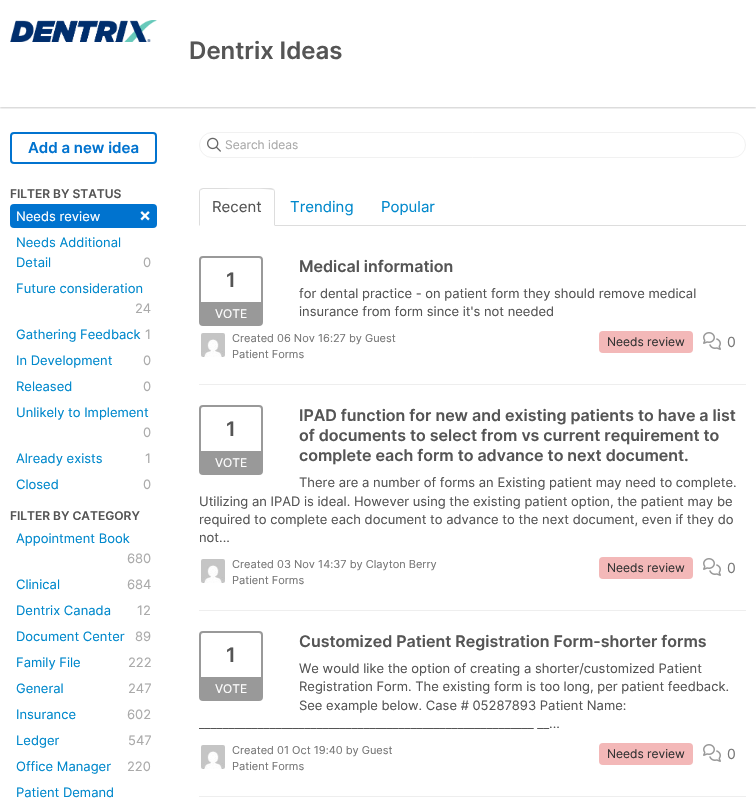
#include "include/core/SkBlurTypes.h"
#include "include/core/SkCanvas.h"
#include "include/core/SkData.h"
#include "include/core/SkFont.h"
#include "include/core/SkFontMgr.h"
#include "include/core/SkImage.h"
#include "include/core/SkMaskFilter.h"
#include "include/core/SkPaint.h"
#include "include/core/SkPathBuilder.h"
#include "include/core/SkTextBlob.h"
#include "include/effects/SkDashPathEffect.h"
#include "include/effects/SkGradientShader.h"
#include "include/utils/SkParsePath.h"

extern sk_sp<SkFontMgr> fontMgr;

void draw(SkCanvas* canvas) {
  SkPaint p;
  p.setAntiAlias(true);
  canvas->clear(SK_ColorWHITE);
  canvas->save();
  canvas->clipRect(SkRect::MakeLTRB(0, 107, 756, 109));
  p.setColor(SkColorSetARGB(51, 0, 0, 0));
  p.setMaskFilter(SkMaskFilter::MakeBlur(kNormal_SkBlurStyle, 1));
  canvas->drawRect(SkRect::MakeLTRB(0, 1, 756, 108), p);
  p.setMaskFilter(nullptr);
  canvas->restore();
  canvas->drawImageRect(SkImages::DeferredFromEncodedData(SkData::MakeFromFileName("images/1.png")), SkRect::MakeLTRB(10, 20, 157, 42), SkSamplingOptions());
  p.setStyle(SkPaint::kStroke_Style);
  p.setStrokeWidth(2);
  p.setColor(SkColorSetRGB(1, 115, 207));
  canvas->drawRoundRect(SkRect::MakeLTRB(11, 133, 156, 163), 3, 3, p);
  p.setStyle(SkPaint::kFill_Style);
  p.setColor(SkColorSetRGB(0, 115, 207));
  canvas->drawRoundRect(SkRect::MakeLTRB(10, 204, 157, 228), 4, 4, p);
  p.setStyle(SkPaint::kStroke_Style);
  p.setStrokeWidth(1);
  p.setColor(SkColorSetRGB(241, 241, 241));
  canvas->drawRoundRect(SkRect::MakeLTRB(199.5f, 132.5f, 745.5f, 157.5f), 12.5f, 12.5f, p);
  canvas->drawImageRect(SkImages::DeferredFromEncodedData(SkData::MakeFromFileName("images/2.png")), SkRect::MakeLTRB(207, 137, 221, 152), SkSamplingOptions());
  p.setStyle(SkPaint::kFill_Style);
  p.setColor(SkColorSetRGB(221, 221, 221));
  canvas->drawRect(SkRect::MakeLTRB(275, 225, 746, 226), p);
  canvas->drawPath(SkPathBuilder().moveTo(203, 188).lineTo(200, 189).lineTo(201, 190).lineTo(203, 189).lineTo(214, 189).cubicTo(221, 189, 271, 188, 273, 190).lineTo(274, 189).lineTo(271, 188).close().detach(), p);
  canvas->drawPath(SkPathBuilder().moveTo(275, 226).lineTo(275, 192).cubicTo(275, 191, 274.5f, 190, 274, 189).lineTo(273, 190).cubicTo(274, 190, 274, 191, 274, 192).lineTo(274, 225).close().detach(), p);
  canvas->drawPath(SkPathBuilder().moveTo(199, 226).lineTo(200, 225).lineTo(200, 192).cubicTo(200, 191, 200, 190, 201, 190).lineTo(200, 189).cubicTo(199.5f, 190, 199, 191, 199, 192).close().detach(), p);
  p.setColor(SkColorSetRGB(238, 238, 238));
  canvas->drawRect(SkRect::MakeLTRB(199, 384, 746, 385), p);
  p.setStyle(SkPaint::kStroke_Style);
  p.setStrokeWidth(2);
  p.setColor(SkColorSetRGB(153, 153, 153));
  canvas->drawRoundRect(SkRect::MakeLTRB(200, 257, 262, 325), 3, 3, p);
  p.setStyle(SkPaint::kFill_Style);
  canvas->drawRect(SkRect::MakeLTRB(201, 302, 261, 324), p);
  canvas->drawImageRect(SkImages::DeferredFromEncodedData(SkData::MakeFromFileName("images/3.png")), SkRect::MakeLTRB(201, 333, 225, 357), SkSamplingOptions());
  p.setColor(SkColorSetRGB(243, 184, 184));
  canvas->drawRoundRect(SkRect::MakeLTRB(599, 331, 693, 353), 4, 4, p);
  canvas->drawImageRect(SkImages::DeferredFromEncodedData(SkData::MakeFromFileName("images/4.png")), SkRect::MakeLTRB(703, 332, 721, 350), SkSamplingOptions());
  p.setColor(SkColorSetRGB(238, 238, 238));
  canvas->drawRect(SkRect::MakeLTRB(199, 610, 746, 611), p);
  canvas->drawImageRect(SkImages::DeferredFromEncodedData(SkData::MakeFromFileName("images/3.png")), SkRect::MakeLTRB(201, 559, 225, 583), SkSamplingOptions());
  p.setColor(SkColorSetRGB(243, 184, 184));
  canvas->drawRoundRect(SkRect::MakeLTRB(599, 557, 693, 579), 4, 4, p);
  canvas->drawImageRect(SkImages::DeferredFromEncodedData(SkData::MakeFromFileName("images/4.png")), SkRect::MakeLTRB(703, 558, 721, 576), SkSamplingOptions());
  p.setStyle(SkPaint::kStroke_Style);
  p.setColor(SkColorSetRGB(153, 153, 153));
  canvas->drawRoundRect(SkRect::MakeLTRB(200, 406, 262, 474), 3, 3, p);
  p.setStyle(SkPaint::kFill_Style);
  canvas->drawRect(SkRect::MakeLTRB(201, 451, 261, 473), p);
  p.setColor(SkColorSetRGB(238, 238, 238));
  canvas->drawRect(SkRect::MakeLTRB(199, 796, 746, 797), p);
  canvas->drawImageRect(SkImages::DeferredFromEncodedData(SkData::MakeFromFileName("images/3.png")), SkRect::MakeLTRB(201, 745, 225, 769), SkSamplingOptions());
  p.setColor(SkColorSetRGB(243, 184, 184));
  canvas->drawRoundRect(SkRect::MakeLTRB(599, 743, 693, 765), 4, 4, p);
  canvas->drawImageRect(SkImages::DeferredFromEncodedData(SkData::MakeFromFileName("images/4.png")), SkRect::MakeLTRB(703, 744, 721, 762), SkSamplingOptions());
  p.setStyle(SkPaint::kStroke_Style);
  p.setColor(SkColorSetRGB(153, 153, 153));
  canvas->drawRoundRect(SkRect::MakeLTRB(200, 632, 262, 700), 3, 3, p);
  p.setStyle(SkPaint::kFill_Style);
  canvas->drawRect(SkRect::MakeLTRB(201, 677, 261, 699), p);
  SkFont font1(fontMgr->matchFamilyStyle("Inter", SkFontStyle(600, SkFontStyle::kNormal_Width, SkFontStyle::kUpright_Slant)), 24);
  font1.setSubpixel(true);
  p.setColor(SkColorSetRGB(85, 85, 85));
  canvas->drawString("Dentrix Ideas", 189, 59, font1, p);
  SkFont font2(fontMgr->matchFamilyStyle("Inter", SkFontStyle(600, SkFontStyle::kNormal_Width, SkFontStyle::kUpright_Slant)), 15);
  font2.setSubpixel(true);
  p.setColor(SkColorSetRGB(1, 115, 207));
  canvas->drawString("Add a new idea", 28, 153, font2, p);
  SkFont font3(fontMgr->matchFamilyStyle("Inter", SkFontStyle(600, SkFontStyle::kNormal_Width, SkFontStyle::kUpright_Slant)), 12);
  font3.setSubpixel(true);
  p.setColor(SkColorSetRGB(85, 85, 85));
  canvas->drawString("FILTER BY STATUS", 10, 198, font3, p);
  SkFont font4(fontMgr->matchFamilyStyle("Inter", SkFontStyle::Normal()), 13);
  font4.setSubpixel(true);
  p.setColor(SK_ColorWHITE);
  canvas->drawString("Needs review", 16, 221, font4, p);
  SkFont font5(fontMgr->matchFamilyStyle("Inter", SkFontStyle(600, SkFontStyle::kNormal_Width, SkFontStyle::kUpright_Slant)), 18);
  font5.setSubpixel(true);
  canvas->drawString("×", 139, 221, font5, p);
  p.setColor(SkColorSetRGB(0, 136, 204));
  canvas->drawString("Needs Additional", 16, 247, font4, p);
  canvas->drawString("Detail", 16, 267, font4, p);
  p.setColor(SkColorSetRGB(170, 170, 170));
  canvas->drawString("0", 143, 267, font4, p);
  p.setColor(SkColorSetRGB(0, 136, 204));
  canvas->drawString("Future consideration", 16, 293, font4, p);
  p.setColor(SkColorSetRGB(170, 170, 170));
  canvas->drawString("24", 135, 313, font4, p);
  p.setColor(SkColorSetRGB(0, 136, 204));
  canvas->drawString("Gathering Feedback", 16, 339, font4, p);
  p.setColor(SkColorSetRGB(170, 170, 170));
  canvas->drawString("1", 145, 339, font4, p);
  p.setColor(SkColorSetRGB(0, 136, 204));
  canvas->drawString("In Development", 16, 365, font4, p);
  p.setColor(SkColorSetRGB(170, 170, 170));
  canvas->drawString("0", 143, 365, font4, p);
  p.setColor(SkColorSetRGB(0, 136, 204));
  canvas->drawString("Released", 16, 391, font4, p);
  p.setColor(SkColorSetRGB(170, 170, 170));
  canvas->drawString("0", 143, 391, font4, p);
  p.setColor(SkColorSetRGB(0, 136, 204));
  canvas->drawString("Unlikely to Implement", 16, 417, font4, p);
  p.setColor(SkColorSetRGB(170, 170, 170));
  canvas->drawString("0", 143, 437, font4, p);
  p.setColor(SkColorSetRGB(0, 136, 204));
  canvas->drawString("Already exists", 16, 463, font4, p);
  p.setColor(SkColorSetRGB(170, 170, 170));
  canvas->drawString("1", 145, 463, font4, p);
  p.setColor(SkColorSetRGB(0, 136, 204));
  canvas->drawString("Closed", 16, 489, font4, p);
  p.setColor(SkColorSetRGB(170, 170, 170));
  canvas->drawString("0", 143, 489, font4, p);
  p.setColor(SkColorSetRGB(85, 85, 85));
  canvas->drawString("FILTER BY CATEGORY", 10, 520, font3, p);
  p.setColor(SkColorSetRGB(0, 136, 204));
  canvas->drawString("Appointment Book", 16, 543, font4, p);
  p.setColor(SkColorSetRGB(170, 170, 170));
  canvas->drawString("680", 127, 563, font4, p);
  p.setColor(SkColorSetRGB(0, 136, 204));
  canvas->drawString("Clinical", 16, 589, font4, p);
  p.setColor(SkColorSetRGB(170, 170, 170));
  canvas->drawString("684", 127, 589, font4, p);
  p.setColor(SkColorSetRGB(0, 136, 204));
  canvas->drawString("Dentrix Canada", 16, 615, font4, p);
  p.setColor(SkColorSetRGB(170, 170, 170));
  canvas->drawString("12", 137, 615, font4, p);
  p.setColor(SkColorSetRGB(0, 136, 204));
  canvas->drawString("Document Center", 16, 641, font4, p);
  p.setColor(SkColorSetRGB(170, 170, 170));
  canvas->drawString("89", 135, 641, font4, p);
  p.setColor(SkColorSetRGB(0, 136, 204));
  canvas->drawString("Family File", 16, 667, font4, p);
  p.setColor(SkColorSetRGB(170, 170, 170));
  canvas->drawString("222", 128, 667, font4, p);
  p.setColor(SkColorSetRGB(0, 136, 204));
  canvas->drawString("General", 16, 693, font4, p);
  p.setColor(SkColorSetRGB(170, 170, 170));
  canvas->drawString("247", 128, 693, font4, p);
  p.setColor(SkColorSetRGB(0, 136, 204));
  canvas->drawString("Insurance", 16, 719, font4, p);
  p.setColor(SkColorSetRGB(170, 170, 170));
  canvas->drawString("602", 127, 719, font4, p);
  p.setColor(SkColorSetRGB(0, 136, 204));
  canvas->drawString("Ledger", 16, 745, font4, p);
  p.setColor(SkColorSetRGB(170, 170, 170));
  canvas->drawString("547", 128, 745, font4, p);
  p.setColor(SkColorSetRGB(0, 136, 204));
  canvas->drawString("Office Manager", 16, 771, font4, p);
  p.setColor(SkColorSetRGB(170, 170, 170));
  canvas->drawString("220", 127, 771, font4, p);
  p.setColor(SkColorSetRGB(0, 136, 204));
  canvas->drawString("Patient Demand", 16, 797, font4, p);
  SkFont font6(fontMgr->matchFamilyStyle("Inter", SkFontStyle::Normal()), 12);
  font6.setSubpixel(true);
  p.setColor(SkColorSetRGB(170, 170, 170));
  canvas->drawString("Search ideas", 225, 149, font6, p);
  SkFont font7(fontMgr->matchFamilyStyle("Inter", SkFontStyle::Normal()), 15);
  font7.setSubpixel(true);
  p.setColor(SkColorSetRGB(85, 85, 85));
  canvas->drawString("Recent", 212, 212, font7, p);
  p.setColor(SkColorSetRGB(0, 136, 204));
  canvas->drawString("Trending", 290, 212, font7, p);
  canvas->drawString("Popular", 381, 212, font7, p);
  SkFont font8(fontMgr->matchFamilyStyle("Inter", SkFontStyle(600, SkFontStyle::kNormal_Width, SkFontStyle::kUpright_Slant)), 20);
  font8.setSubpixel(true);
  p.setColor(SkColorSetRGB(85, 85, 85));
  canvas->drawString("1", 226, 287, font8, p);
  p.setColor(SK_ColorWHITE);
  canvas->drawString("VOTE", 215, 318, font6, p);
  SkFont font9(fontMgr->matchFamilyStyle("Inter", SkFontStyle(600, SkFontStyle::kNormal_Width, SkFontStyle::kUpright_Slant)), 16);
  font9.setSubpixel(true);
  p.setColor(SkColorSetRGB(85, 85, 85));
  canvas->drawString("Medical information", 299, 272, font9, p);
  canvas->drawString("for dental practice - on patient form they should remove medical", 299, 298, font4, p);
  canvas->drawString("insurance from form since it's not needed", 299, 316, font4, p);
  SkFont font10(fontMgr->matchFamilyStyle("Inter", SkFontStyle::Normal()), 11);
  font10.setSubpixel(true);
  p.setColor(SkColorSetRGB(119, 119, 119));
  canvas->drawString("Created 06 Nov 16:27 by Guest", 232, 342, font10, p);
  canvas->drawString("Patient Forms", 232, 358, font10, p);
  p.setColor(SkColorSetRGB(51, 51, 51));
  canvas->drawString("Needs review", 607, 346, font6, p);
  SkFont font11(fontMgr->matchFamilyStyle("Inter", SkFontStyle::Normal()), 14);
  font11.setSubpixel(true);
  p.setColor(SkColorSetRGB(119, 119, 119));
  canvas->drawString("0", 727, 347, font11, p);
  p.setColor(SkColorSetRGB(85, 85, 85));
  canvas->drawString("IPAD function for new and existing patients to have a list", 299, 421, font9, p);
  canvas->drawString("of documents to select from vs current requirement to", 299, 441, font9, p);
  canvas->drawString("complete each form to advance to next document.", 299, 461, font9, p);
  canvas->drawString("There are a number of forms an Existing patient may need to complete.", 299, 487, font4, p);
  canvas->drawString("Utilizing an IPAD is ideal. However using the existing patient option, the patient may be", 199, 506, font4, p);
  canvas->drawString("required to complete each document to advance to the next document, even if they do", 199, 524, font4, p);
  canvas->drawString("not...", 199, 542, font4, p);
  p.setColor(SkColorSetRGB(119, 119, 119));
  canvas->drawString("Created 03 Nov 14:37 by Clayton Berry", 232, 568, font10, p);
  canvas->drawString("Patient Forms", 232, 584, font10, p);
  p.setColor(SkColorSetRGB(51, 51, 51));
  canvas->drawString("Needs review", 607, 572, font6, p);
  p.setColor(SkColorSetRGB(119, 119, 119));
  canvas->drawString("0", 727, 573, font11, p);
  p.setColor(SkColorSetRGB(85, 85, 85));
  canvas->drawString("1", 226, 436, font8, p);
  p.setColor(SK_ColorWHITE);
  canvas->drawString("VOTE", 215, 467, font6, p);
  p.setColor(SkColorSetRGB(85, 85, 85));
  canvas->drawString("Customized Patient Registration Form-shorter forms", 299, 647, font9, p);
  canvas->drawString("We would like the option of creating a shorter/customized Patient", 299, 673, font4, p);
  canvas->drawString("Registration Form. The existing form is too long, per patient feedback.", 299, 691, font4, p);
  canvas->drawString("See example below. Case # 05287893 Patient Name:", 299, 710, font4, p);
  canvas->drawString("_________________________________________________________ __...", 199, 728, font4, p);
  p.setColor(SkColorSetRGB(119, 119, 119));
  canvas->drawString("Created 01 Oct 19:40 by Guest", 232, 754, font10, p);
  canvas->drawString("Patient Forms", 232, 770, font10, p);
  p.setColor(SkColorSetRGB(51, 51, 51));
  canvas->drawString("Needs review", 607, 758, font6, p);
  p.setColor(SkColorSetRGB(119, 119, 119));
  canvas->drawString("0", 727, 759, font11, p);
  p.setColor(SkColorSetRGB(85, 85, 85));
  canvas->drawString("1", 226, 662, font8, p);
  p.setColor(SK_ColorWHITE);
  canvas->drawString("VOTE", 215, 693, font6, p);
}
